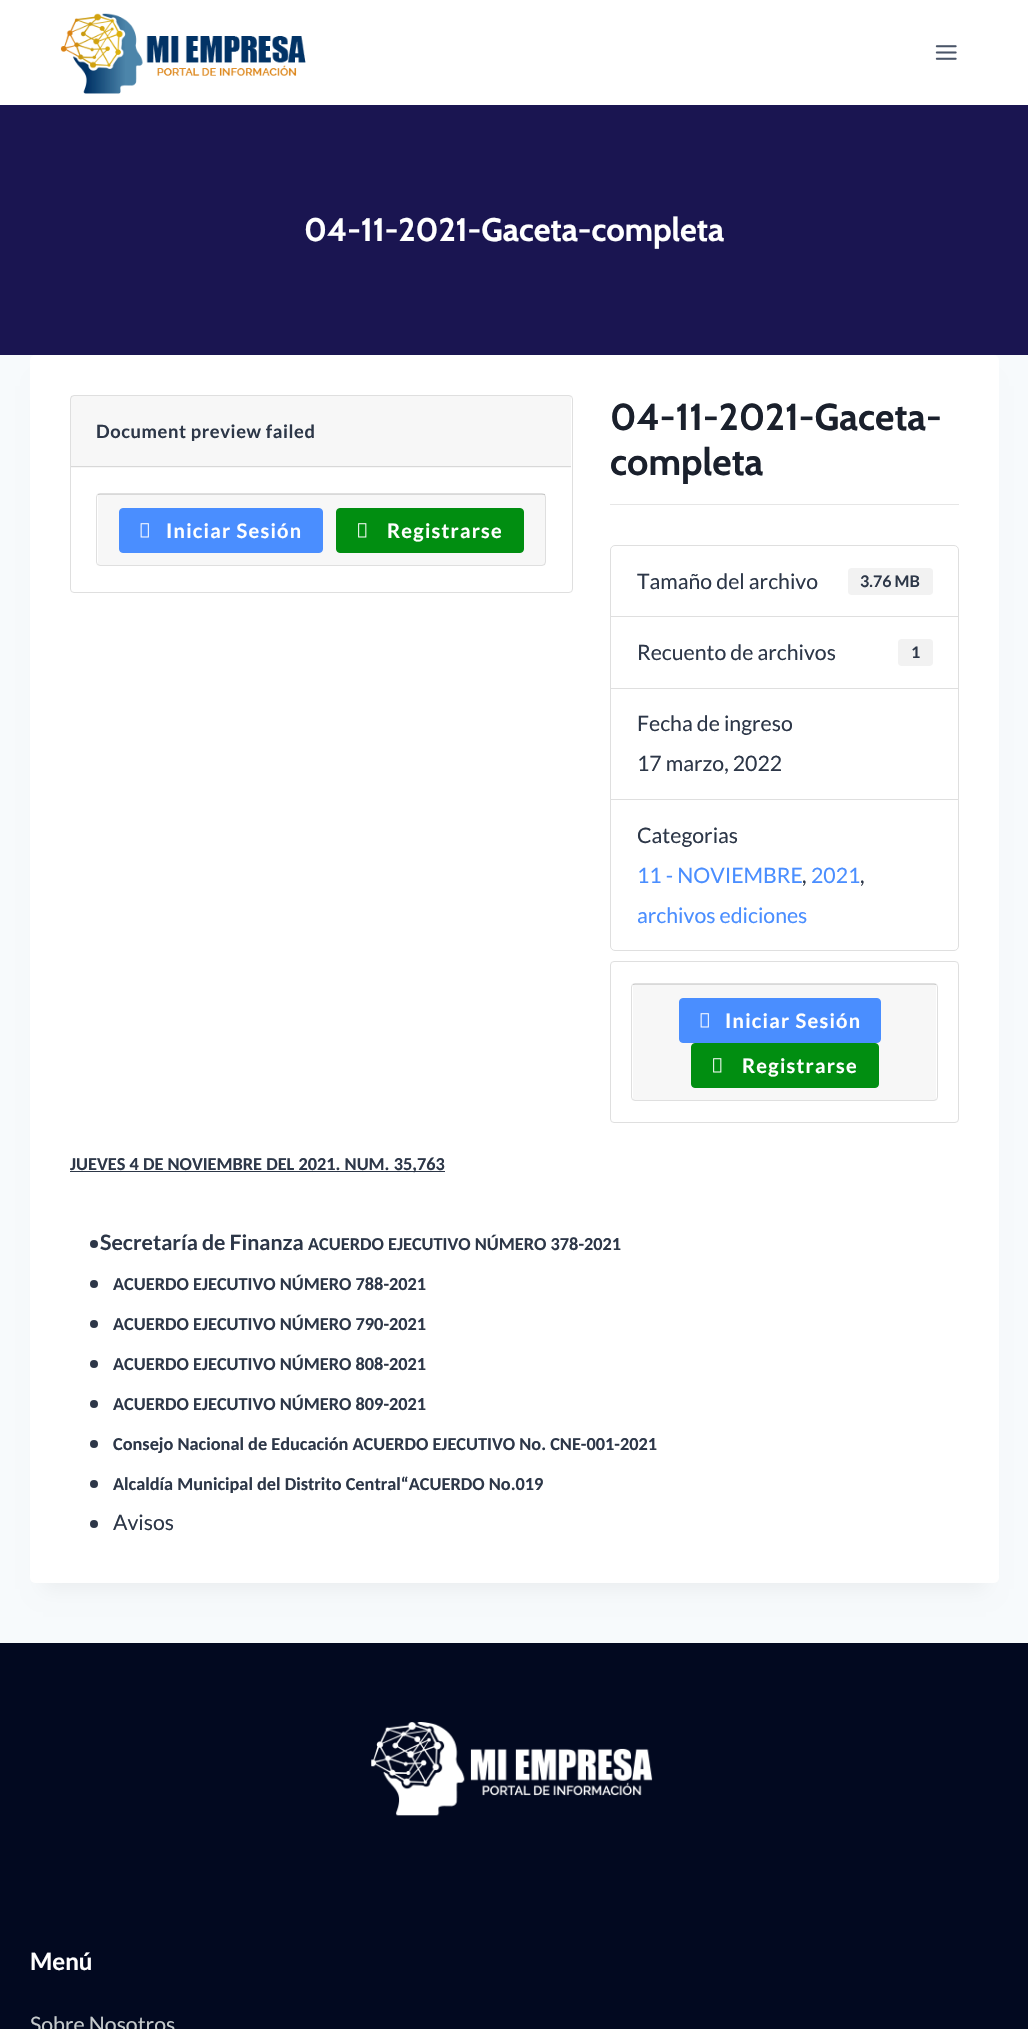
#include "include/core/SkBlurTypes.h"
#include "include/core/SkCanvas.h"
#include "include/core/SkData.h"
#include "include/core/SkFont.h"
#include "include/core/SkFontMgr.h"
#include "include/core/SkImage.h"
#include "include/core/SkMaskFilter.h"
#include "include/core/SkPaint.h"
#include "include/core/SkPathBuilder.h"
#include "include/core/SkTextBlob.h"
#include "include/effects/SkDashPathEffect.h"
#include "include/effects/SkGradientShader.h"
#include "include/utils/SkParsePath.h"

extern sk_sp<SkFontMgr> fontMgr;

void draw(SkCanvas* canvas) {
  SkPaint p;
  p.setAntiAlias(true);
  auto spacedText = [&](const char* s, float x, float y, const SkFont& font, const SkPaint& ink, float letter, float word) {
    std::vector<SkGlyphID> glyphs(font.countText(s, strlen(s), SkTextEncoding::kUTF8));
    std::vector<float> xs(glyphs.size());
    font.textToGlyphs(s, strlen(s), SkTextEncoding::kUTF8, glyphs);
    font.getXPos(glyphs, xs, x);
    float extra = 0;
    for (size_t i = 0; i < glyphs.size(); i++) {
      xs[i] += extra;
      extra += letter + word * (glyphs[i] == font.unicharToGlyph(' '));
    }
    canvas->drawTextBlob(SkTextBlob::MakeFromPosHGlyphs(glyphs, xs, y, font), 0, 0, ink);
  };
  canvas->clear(SkColorSetRGB(247, 250, 252));
  p.setColor(SK_ColorWHITE);
  canvas->drawRect(SkRect::MakeLTRB(0, 0, 1028, 105), p);
  canvas->drawImageRect(SkImages::DeferredFromEncodedData(SkData::MakeFromFileName("images/1.png")), SkRect::MakeLTRB(60, 13, 306, 94), SkSamplingOptions());
  canvas->drawImageRect(SkImages::DeferredFromEncodedData(SkData::MakeFromFileName("images/2.png")), SkRect::MakeLTRB(935, 45, 957, 60), SkSamplingOptions());
  p.setColor(SkColorSetRGB(26, 21, 81));
  canvas->drawRect(SkRect::MakeLTRB(0, 105, 1028, 355), p);
  p.setColor(SkColorSetARGB(13, 0, 0, 0));
  p.setMaskFilter(SkMaskFilter::MakeBlur(kNormal_SkBlurStyle, 9.5f));
  canvas->drawRect(SkRect::MakeLTRB(43, 386, 986, 1589), p);
  p.setMaskFilter(nullptr);
  p.setColor(SK_ColorWHITE);
  canvas->drawRoundRect(SkRect::MakeLTRB(30, 355, 999, 1583), 5, 5, p);
  p.setStyle(SkPaint::kStroke_Style);
  p.setStrokeWidth(1);
  p.setColor(SkColorSetRGB(223, 223, 223));
  canvas->drawRoundRect(SkRect::MakeLTRB(70.5f, 395.5f, 572.5f, 592.5f), 3.5f, 3.5f, p);
  p.setStyle(SkPaint::kFill_Style);
  p.setColor(SkColorSetARGB(8, 0, 0, 0));
  canvas->drawRect(SkRect::MakeLTRB(71, 396, 571, 468), p);
  p.setColor(SkColorSetRGB(216, 216, 216));
  canvas->drawRect(SkRect::MakeLTRB(71, 466, 571, 467), p);
  p.setStyle(SkPaint::kStroke_Style);
  p.setColor(SkColorSetRGB(223, 223, 223));
  canvas->drawRoundRect(SkRect::MakeLTRB(96.5f, 493.5f, 545.5f, 565.5f), 3.5f, 3.5f, p);
  p.setStyle(SkPaint::kFill_Style);
  p.setColor(SkColorSetARGB(8, 0, 0, 0));
  canvas->drawRect(SkRect::MakeLTRB(98, 494, 545, 565), p);
  p.setColor(SkColorSetARGB(31, 0, 0, 0));
  canvas->drawRect(SkRect::MakeLTRB(98, 494, 545, 495), p);
  p.setColor(SkColorSetRGB(74, 142, 255));
  canvas->drawRoundRect(SkRect::MakeLTRB(119.5f, 508.5f, 322.5f, 552.5f), 3.5f, 3.5f, p);
  p.setStyle(SkPaint::kStroke_Style);
  canvas->drawRoundRect(SkRect::MakeLTRB(119.5f, 508.5f, 322.5f, 552.5f), 3.5f, 3.5f, p);
  canvas->drawImageRect(SkImages::DeferredFromEncodedData(SkData::MakeFromFileName("images/3.png")), SkRect::MakeLTRB(140, 523, 149, 538), SkSamplingOptions());
  p.setStyle(SkPaint::kFill_Style);
  p.setColor(SkColorSetRGB(1, 142, 17));
  canvas->drawRoundRect(SkRect::MakeLTRB(336.5f, 508.5f, 523.5f, 552.5f), 3.5f, 3.5f, p);
  p.setStyle(SkPaint::kStroke_Style);
  canvas->drawRoundRect(SkRect::MakeLTRB(336.5f, 508.5f, 523.5f, 552.5f), 3.5f, 3.5f, p);
  canvas->drawImageRect(SkImages::DeferredFromEncodedData(SkData::MakeFromFileName("images/4.png")), SkRect::MakeLTRB(358, 523, 367, 538), SkSamplingOptions());
  p.setStyle(SkPaint::kFill_Style);
  p.setColor(SkColorSetRGB(230, 230, 230));
  canvas->drawRect(SkRect::MakeLTRB(610, 504, 959, 505), p);
  p.setStyle(SkPaint::kStroke_Style);
  p.setColor(SkColorSetRGB(223, 223, 223));
  canvas->drawPath(SkPathBuilder().moveTo(615, 545.5f).lineTo(954, 545.5f).cubicTo(956.5f, 545.5f, 958.5f, 547.5f, 958.5f, 550).lineTo(958.5f, 617.5f).lineTo(610.5f, 617.5f).lineTo(610.5f, 550).cubicTo(610.5f, 547.5f, 612.5f, 545.5f, 615, 545.5f).close().detach(), p);
  p.setStyle(SkPaint::kFill_Style);
  p.setColor(SkColorSetRGB(242, 242, 242));
  canvas->drawRoundRect(SkRect::MakeLTRB(848, 568, 933, 595), 4, 4, p);
  p.setColor(SK_ColorWHITE);
  canvas->drawRect(SkRect::MakeLTRB(611, 617, 958, 618), p);
  p.setStyle(SkPaint::kStroke_Style);
  p.setColor(SkColorSetRGB(223, 223, 223));
  canvas->drawRect(SkRect::MakeLTRB(610.5f, 616.5f, 958.5f, 688.5f), p);
  p.setStyle(SkPaint::kFill_Style);
  p.setColor(SkColorSetRGB(242, 242, 242));
  canvas->drawRoundRect(SkRect::MakeLTRB(898, 639, 933, 666), 4, 4, p);
  p.setStyle(SkPaint::kStroke_Style);
  p.setColor(SkColorSetRGB(223, 223, 223));
  canvas->drawRect(SkRect::MakeLTRB(610.5f, 688.5f, 958.5f, 799.5f), p);
  p.setStyle(SkPaint::kFill_Style);
  p.setColor(SK_ColorWHITE);
  canvas->drawPath(SkPathBuilder().moveTo(610.5f, 799.5f).lineTo(958.5f, 799.5f).lineTo(958.5f, 946).cubicTo(958.5f, 948.5f, 956.5f, 950.5f, 954, 950.5f).lineTo(615, 950.5f).cubicTo(612.5f, 950.5f, 610.5f, 948.5f, 610.5f, 946).close().detach(), p);
  p.setStyle(SkPaint::kStroke_Style);
  p.setColor(SkColorSetRGB(223, 223, 223));
  canvas->drawPath(SkPathBuilder().moveTo(610.5f, 799.5f).lineTo(958.5f, 799.5f).lineTo(958.5f, 946).cubicTo(958.5f, 948.5f, 956.5f, 950.5f, 954, 950.5f).lineTo(615, 950.5f).cubicTo(612.5f, 950.5f, 610.5f, 948.5f, 610.5f, 946).close().detach(), p);
  canvas->drawRoundRect(SkRect::MakeLTRB(610.5f, 961.5f, 958.5f, 1122.5f), 3.5f, 3.5f, p);
  canvas->drawRoundRect(SkRect::MakeLTRB(631.5f, 983.5f, 937.5f, 1100.5f), 3.5f, 3.5f, p);
  p.setStyle(SkPaint::kFill_Style);
  p.setColor(SkColorSetARGB(8, 0, 0, 0));
  canvas->drawRect(SkRect::MakeLTRB(633, 984, 936, 1100), p);
  p.setColor(SkColorSetARGB(31, 0, 0, 0));
  canvas->drawRect(SkRect::MakeLTRB(633, 984, 936, 985), p);
  p.setColor(SkColorSetRGB(74, 142, 255));
  canvas->drawRoundRect(SkRect::MakeLTRB(679.5f, 998.5f, 880.5f, 1042.5f), 3.5f, 3.5f, p);
  p.setStyle(SkPaint::kStroke_Style);
  canvas->drawRoundRect(SkRect::MakeLTRB(679.5f, 998.5f, 880.5f, 1042.5f), 3.5f, 3.5f, p);
  canvas->drawImageRect(SkImages::DeferredFromEncodedData(SkData::MakeFromFileName("images/3.png")), SkRect::MakeLTRB(700, 1013, 709, 1028), SkSamplingOptions());
  p.setStyle(SkPaint::kFill_Style);
  p.setColor(SkColorSetRGB(1, 142, 17));
  canvas->drawRoundRect(SkRect::MakeLTRB(691.5f, 1043.5f, 878.5f, 1087.5f), 3.5f, 3.5f, p);
  p.setStyle(SkPaint::kStroke_Style);
  canvas->drawRoundRect(SkRect::MakeLTRB(691.5f, 1043.5f, 878.5f, 1087.5f), 3.5f, 3.5f, p);
  canvas->drawImageRect(SkImages::DeferredFromEncodedData(SkData::MakeFromFileName("images/4.png")), SkRect::MakeLTRB(713, 1058, 722, 1073), SkSamplingOptions());
  p.setStyle(SkPaint::kFill_Style);
  p.setColor(SkColorSetRGB(45, 55, 72));
  canvas->drawRect(SkRect::MakeLTRB(70, 1171, 445, 1172), p);
  canvas->drawCircle(94, 1244, 4, p);
  canvas->drawCircle(94, 1284, 4, p);
  canvas->drawCircle(94, 1324, 4, p);
  canvas->drawCircle(94, 1364, 4, p);
  canvas->drawCircle(94, 1404, 4, p);
  canvas->drawCircle(94, 1444, 4, p);
  canvas->drawCircle(94, 1484, 4, p);
  canvas->drawCircle(94, 1524, 4, p);
  p.setColor(SkColorSetRGB(2, 9, 32));
  canvas->drawRect(SkRect::MakeLTRB(0, 1643, 1028, 2029), p);
  canvas->drawImageRect(SkImages::DeferredFromEncodedData(SkData::MakeFromFileName("images/5.png")), SkRect::MakeLTRB(371, 1722, 653, 1816), SkSamplingOptions());
  SkFont font1(fontMgr->matchFamilyStyle("Cabin", SkFontStyle::Bold()), 32.5f);
  font1.setSubpixel(true);
  p.setColor(SK_ColorWHITE);
  canvas->drawString("04-11-2021-Gaceta-completa", 304, 241, font1, p);
  SkFont font2(fontMgr->matchFamilyStyle("Lato", SkFontStyle::Bold()), 18.3f);
  font2.setSubpixel(true);
  p.setColor(SkColorSetRGB(45, 55, 72));
  spacedText("Document preview failed", 96, 438, font2, p, 0.6f, 0);
  SkFont font3(fontMgr->matchFamilyStyle("Lato", SkFontStyle::Bold()), 20);
  font3.setSubpixel(true);
  p.setColor(SK_ColorWHITE);
  spacedText("Iniciar Sesión", 166, 538, font3, p, 1.25f, 0);
  spacedText("Registrarse", 387, 538, font3, p, 1.25f, 0);
  SkFont font4(fontMgr->matchFamilyStyle("Cabin", SkFontStyle::Bold()), 37.5f);
  font4.setSubpixel(true);
  p.setColor(SkColorSetRGB(26, 32, 44));
  canvas->drawString("04-11-2021-Gaceta-", 610, 430, font4, p);
  canvas->drawString("completa", 610, 475, font4, p);
  SkFont font5(fontMgr->matchFamilyStyle("Lato", SkFontStyle::Normal()), 21.25f);
  font5.setSubpixel(true);
  p.setColor(SkColorSetRGB(45, 55, 72));
  canvas->drawString("Tamaño del archivo", 637, 589, font5, p);
  SkFont font6(fontMgr->matchFamilyStyle("Lato", SkFontStyle::Bold()), 16);
  font6.setSubpixel(true);
  canvas->drawString("3.76 MB", 860, 587, font6, p);
  canvas->drawString("Recuento de archivos", 637, 660, font5, p);
  canvas->drawString("1", 911, 658, font6, p);
  canvas->drawString("Fecha de ingreso", 637, 731, font5, p);
  canvas->drawString("17 marzo, 2022", 637, 771, font5, p);
  canvas->drawString("Categorias", 637, 843, font5, p);
  p.setColor(SkColorSetRGB(74, 142, 255));
  canvas->drawString("11 - NOVIEMBRE", 637, 883, font5, p);
  p.setColor(SkColorSetRGB(45, 55, 72));
  canvas->drawString(",", 802, 883, font5, p);
  p.setColor(SkColorSetRGB(74, 142, 255));
  canvas->drawString("2021", 811, 883, font5, p);
  p.setColor(SkColorSetRGB(45, 55, 72));
  canvas->drawString(",", 860, 883, font5, p);
  p.setColor(SkColorSetRGB(74, 142, 255));
  canvas->drawString("archivos ediciones", 637, 923, font5, p);
  p.setColor(SK_ColorWHITE);
  spacedText("Iniciar Sesión", 725, 1028, font3, p, 1.25f, 0);
  spacedText("Registrarse", 742, 1073, font3, p, 1.25f, 0);
  SkFont font7(fontMgr->matchFamilyStyle("Carlito", SkFontStyle::Bold()), 18.3f);
  font7.setSubpixel(true);
  p.setColor(SkColorSetRGB(45, 55, 72));
  canvas->drawString("JUEVES 4 DE NOVIEMBRE DEL 2021. NUM. 35,763", 70, 1170, font7, p);
  SkFont font8(fontMgr->matchFamilyStyle("Lato", SkFontStyle::Bold()), 21.25f);
  font8.setSubpixel(true);
  canvas->drawString("Secretaría de Finanza", 100, 1250, font8, p);
  canvas->drawString("ACUERDO EJECUTIVO NÚMERO 378-2021", 308, 1250, font7, p);
  canvas->drawString("ACUERDO EJECUTIVO NÚMERO 788-2021", 113, 1290, font7, p);
  canvas->drawString("ACUERDO EJECUTIVO NÚMERO 790-2021", 113, 1330, font7, p);
  canvas->drawString("ACUERDO EJECUTIVO NÚMERO 808-2021", 113, 1370, font7, p);
  canvas->drawString("ACUERDO EJECUTIVO NÚMERO 809-2021", 113, 1410, font7, p);
  canvas->drawString("Consejo Nacional de Educación ACUERDO EJECUTIVO No. CNE-001-2021", 113, 1450, font7, p);
  canvas->drawString("Alcaldía Municipal del Distrito Central“ACUERDO No.019", 113, 1490, font7, p);
  canvas->drawString("Avisos", 113, 1530, font5, p);
  SkFont font9(fontMgr->matchFamilyStyle("Lato", SkFontStyle::Bold()), 24);
  font9.setSubpixel(true);
  p.setColor(SK_ColorWHITE);
  canvas->drawString("Menú", 30, 1970, font9, p);
  p.setColor(SkColorSetRGB(197, 202, 204));
  canvas->drawString("Sobre Nosotros", 30, 2032, font5, p);
}
